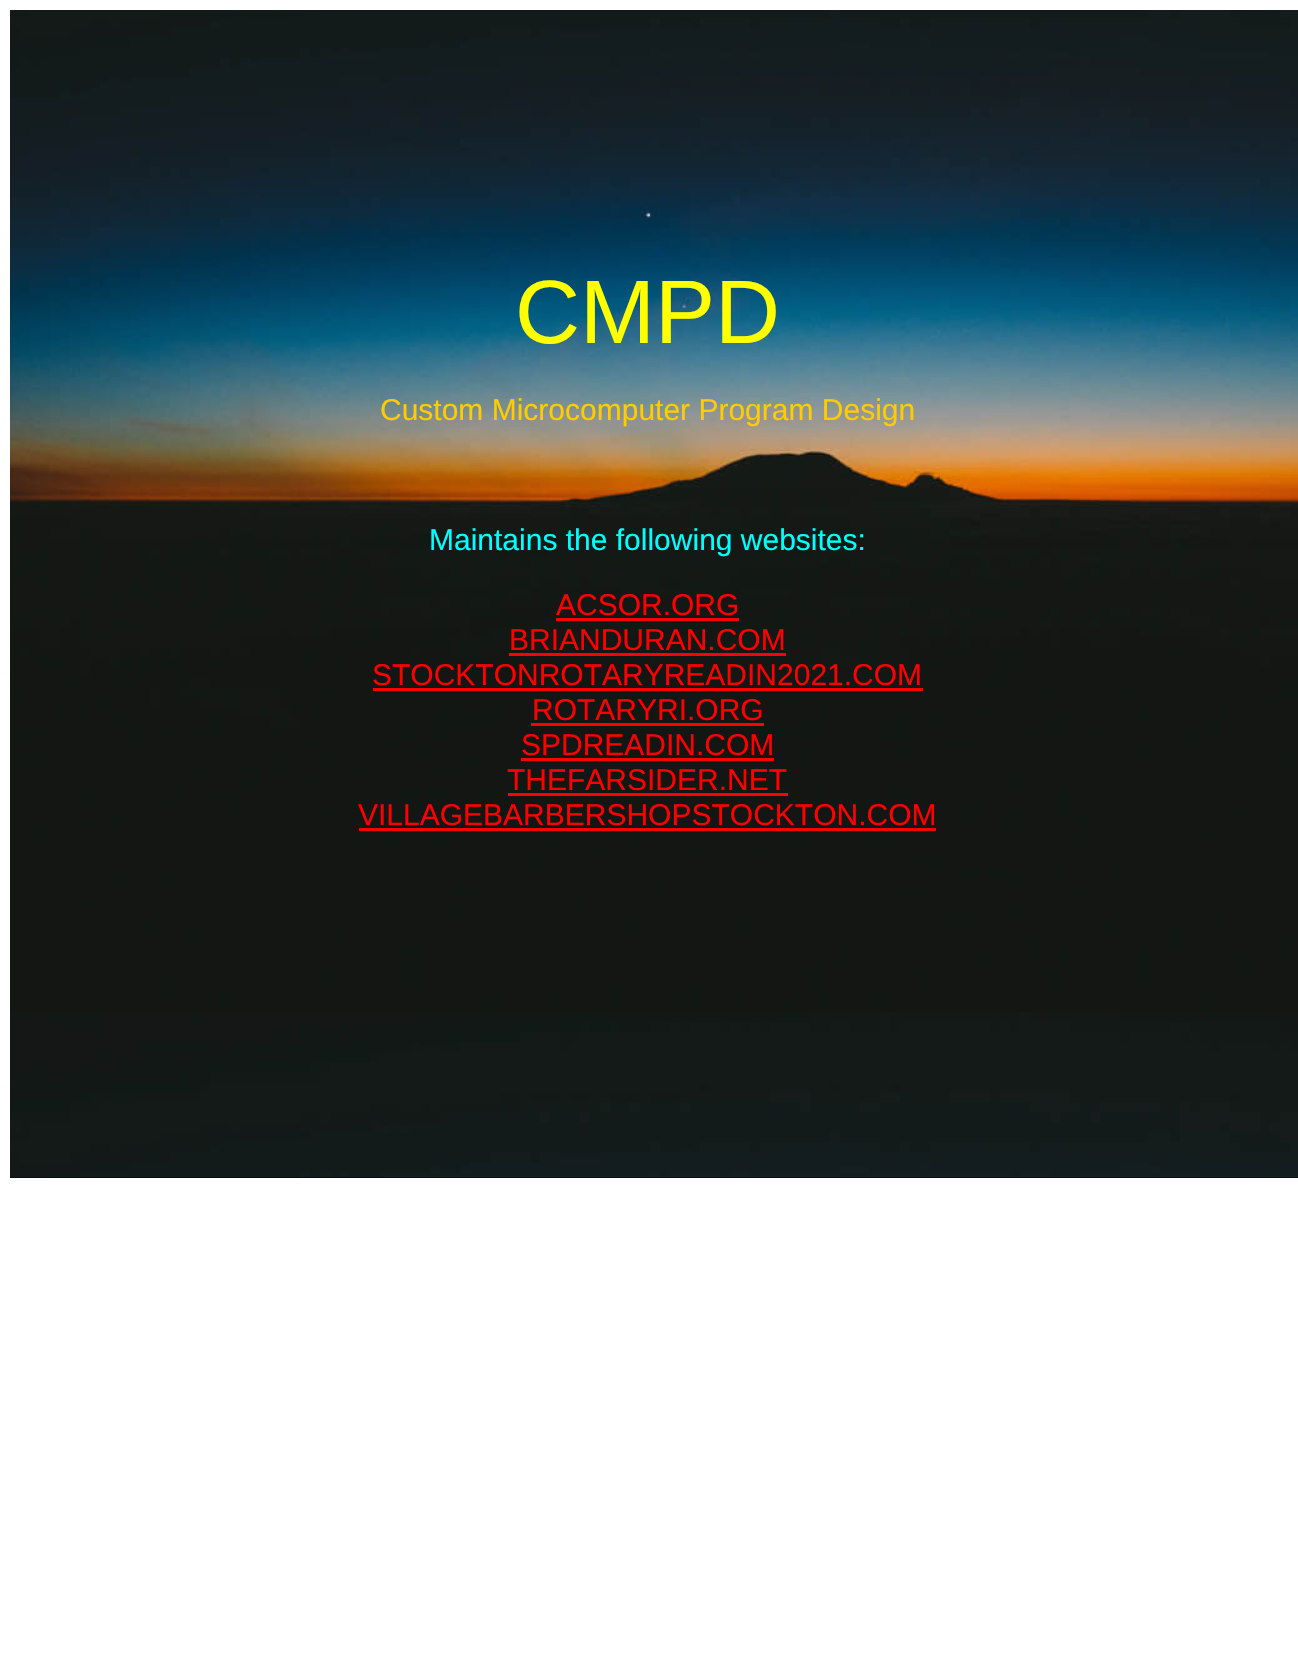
#include "include/core/SkBlurTypes.h"
#include "include/core/SkCanvas.h"
#include "include/core/SkData.h"
#include "include/core/SkFont.h"
#include "include/core/SkFontMgr.h"
#include "include/core/SkImage.h"
#include "include/core/SkMaskFilter.h"
#include "include/core/SkPaint.h"
#include "include/core/SkPathBuilder.h"
#include "include/core/SkTextBlob.h"
#include "include/effects/SkDashPathEffect.h"
#include "include/effects/SkGradientShader.h"
#include "include/utils/SkParsePath.h"

extern sk_sp<SkFontMgr> fontMgr;

void draw(SkCanvas* canvas) {
  SkPaint p;
  p.setAntiAlias(true);
  canvas->clear(SK_ColorWHITE);
  p.setColor(SK_ColorBLACK);
  canvas->drawRect(SkRect::MakeLTRB(10, 1177, 1298, 1178), p);
  canvas->drawImageRect(SkImages::DeferredFromEncodedData(SkData::MakeFromFileName("images/1.png")), SkRect::MakeLTRB(10, 10, 1298, 1178), SkSamplingOptions());
  p.setColor(SkColorSetRGB(255, 0, 0));
  canvas->drawRect(SkRect::MakeLTRB(556, 618, 739, 621), p);
  canvas->drawRect(SkRect::MakeLTRB(509, 653, 786, 656), p);
  canvas->drawRect(SkRect::MakeLTRB(373, 688, 923, 691), p);
  canvas->drawRect(SkRect::MakeLTRB(531, 723, 764, 726), p);
  canvas->drawRect(SkRect::MakeLTRB(521, 758, 774, 761), p);
  canvas->drawRect(SkRect::MakeLTRB(508, 793, 788, 796), p);
  canvas->drawRect(SkRect::MakeLTRB(359, 828, 936, 831), p);
  SkFont font1(fontMgr->matchFamilyStyle("Liberation Sans", SkFontStyle::Normal()), 90);
  font1.setSubpixel(true);
  p.setColor(SkColorSetRGB(255, 255, 0));
  canvas->drawString("CMPD", 515, 343, font1, p);
  SkFont font2(fontMgr->matchFamilyStyle("Liberation Sans", SkFontStyle::Normal()), 30);
  font2.setSubpixel(true);
  p.setColor(SkColorSetRGB(255, 204, 0));
  canvas->drawString("Custom Microcomputer Program Design", 380, 420, font2, p);
  p.setColor(SkColorSetRGB(0, 255, 255));
  canvas->drawString("Maintains the following websites:", 429, 550, font2, p);
  p.setColor(SkColorSetRGB(255, 0, 0));
  canvas->drawString("ACSOR.ORG", 556, 615, font2, p);
  canvas->drawString("BRIANDURAN.COM", 509, 650, font2, p);
  canvas->drawString("STOCKTONROTARYREADIN2021.COM", 372, 685, font2, p);
  canvas->drawString("ROTARYRI.ORG", 532, 720, font2, p);
  canvas->drawString("SPDREADIN.COM", 521, 755, font2, p);
  canvas->drawString("THEFARSIDER.NET", 507, 790, font2, p);
  canvas->drawString("VILLAGEBARBERSHOPSTOCKTON.COM", 358, 825, font2, p);
}
